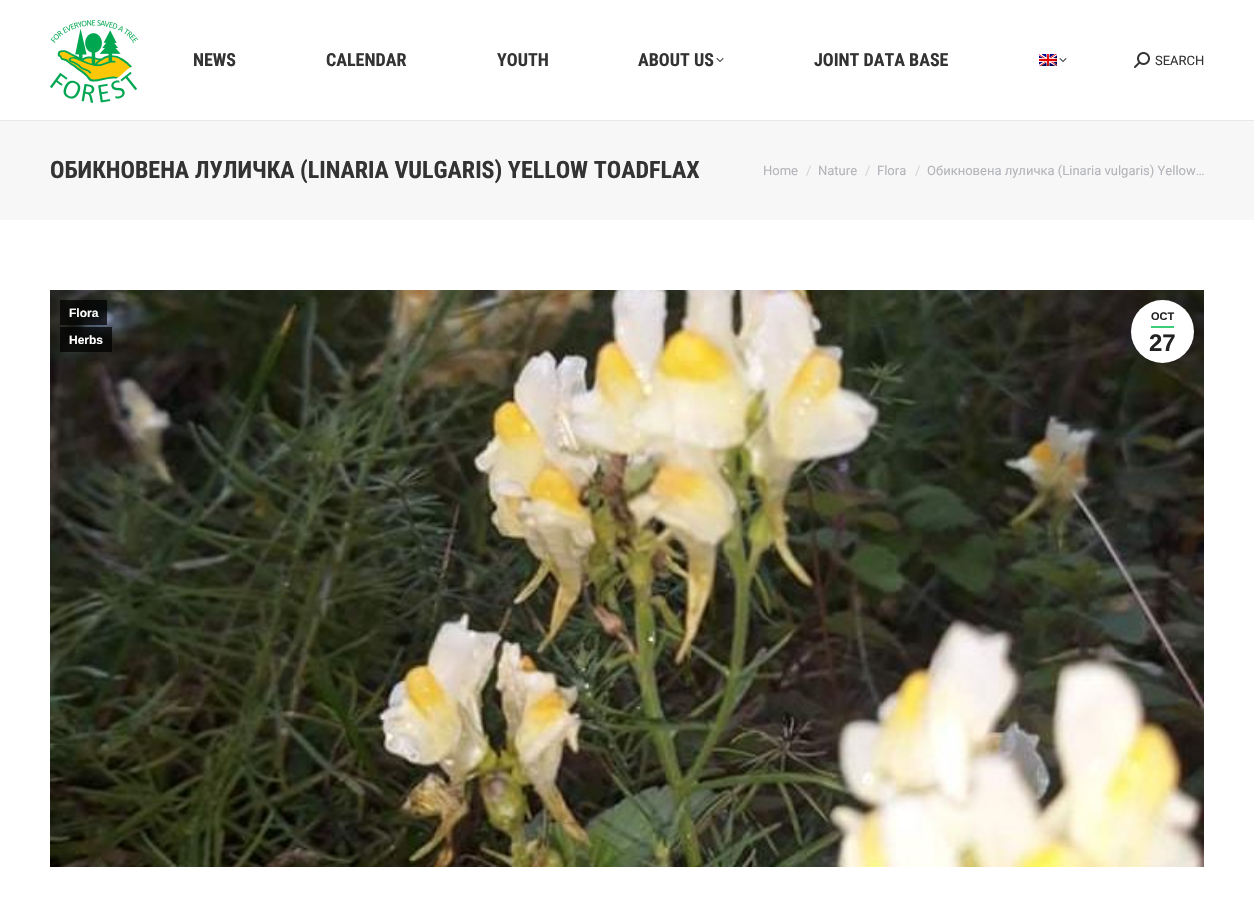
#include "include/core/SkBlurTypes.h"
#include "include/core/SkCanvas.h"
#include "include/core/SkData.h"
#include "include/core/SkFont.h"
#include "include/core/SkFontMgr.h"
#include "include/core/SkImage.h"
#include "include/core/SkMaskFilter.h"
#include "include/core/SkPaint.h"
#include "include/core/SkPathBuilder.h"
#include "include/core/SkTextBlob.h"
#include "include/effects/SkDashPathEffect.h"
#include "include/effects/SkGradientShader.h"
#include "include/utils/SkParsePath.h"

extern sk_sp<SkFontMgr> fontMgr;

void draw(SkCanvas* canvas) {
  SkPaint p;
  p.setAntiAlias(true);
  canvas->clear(SK_ColorWHITE);
  p.setColor(SkColorSetRGB(231, 231, 231));
  canvas->drawRect(SkRect::MakeLTRB(0, 120, 1254, 121), p);
  canvas->drawImageRect(SkImages::DeferredFromEncodedData(SkData::MakeFromFileName("images/1.png")), SkRect::MakeLTRB(50, 20, 138, 103), SkSamplingOptions());
  canvas->drawImageRect(SkImages::DeferredFromEncodedData(SkData::MakeFromFileName("images/2.png")), SkRect::MakeLTRB(716, 58, 724, 62), SkSamplingOptions());
  canvas->drawImageRect(SkImages::DeferredFromEncodedData(SkData::MakeFromFileName("images/3.png")), SkRect::MakeLTRB(1039, 54, 1057, 66), SkSamplingOptions());
  canvas->drawImageRect(SkImages::DeferredFromEncodedData(SkData::MakeFromFileName("images/2.png")), SkRect::MakeLTRB(1059, 58, 1067, 62), SkSamplingOptions());
  canvas->drawImageRect(SkImages::DeferredFromEncodedData(SkData::MakeFromFileName("images/4.png")), SkRect::MakeLTRB(1134, 52, 1150, 68), SkSamplingOptions());
  p.setColor(SkColorSetRGB(247, 247, 247));
  canvas->drawRect(SkRect::MakeLTRB(0, 121, 1254, 220), p);
  canvas->drawImageRect(SkImages::DeferredFromEncodedData(SkData::MakeFromFileName("images/5.png")), SkRect::MakeLTRB(50, 290, 1204, 867), SkSamplingOptions());
  p.setColor(SkColorSetARGB(191, 0, 0, 0));
  canvas->drawRect(SkRect::MakeLTRB(60, 300, 107, 325), p);
  canvas->drawRect(SkRect::MakeLTRB(60, 327, 112, 352), p);
  p.setColor(SK_ColorWHITE);
  canvas->drawCircle(1162.5f, 331.5f, 31.5f, p);
  p.setColor(SkColorSetRGB(59, 205, 119));
  canvas->drawRect(SkRect::MakeLTRB(1151, 326, 1174, 328), p);
  SkFont font1(fontMgr->matchFamilyStyle("Roboto Condensed", SkFontStyle::Bold()), 18);
  font1.setSubpixel(true);
  p.setColor(SkColorSetRGB(51, 51, 51));
  canvas->drawString("NEWS", 193, 66, font1, p);
  canvas->drawString("CALENDAR", 326, 66, font1, p);
  canvas->drawString("YOUTH", 497, 66, font1, p);
  canvas->drawString("ABOUT US", 638, 66, font1, p);
  canvas->drawString("JOINT DATA BASE", 814, 66, font1, p);
  SkFont font2(fontMgr->matchFamilyStyle("Roboto", SkFontStyle::Normal()), 13);
  font2.setSubpixel(true);
  canvas->drawString("SEARCH", 1155, 65, font2, p);
  SkFont font3(fontMgr->matchFamilyStyle("Roboto Condensed", SkFontStyle::Bold()), 24);
  font3.setSubpixel(true);
  canvas->drawString("ОБИКНОВЕНА ЛУЛИЧКА (LINARIA VULGARIS) YELLOW TOADFLAX", 50, 178, font3, p);
  p.setColor(SkColorSetRGB(180, 181, 187));
  canvas->drawString("Home", 763, 175, font2, p);
  p.setColor(SkColorSetRGB(214, 214, 217));
  canvas->drawString("/", 806, 175, font2, p);
  p.setColor(SkColorSetRGB(180, 181, 187));
  canvas->drawString("Nature", 818, 175, font2, p);
  p.setColor(SkColorSetRGB(214, 214, 217));
  canvas->drawString("/", 865, 175, font2, p);
  p.setColor(SkColorSetRGB(180, 181, 187));
  canvas->drawString("Flora", 877, 175, font2, p);
  p.setColor(SkColorSetRGB(214, 214, 217));
  canvas->drawString("/", 915, 175, font2, p);
  p.setColor(SkColorSetRGB(180, 181, 187));
  canvas->drawString("Обикновена луличка (Linaria vulgaris) Yellow…", 927, 175, font2, p);
  SkFont font4(fontMgr->matchFamilyStyle("Liberation Sans", SkFontStyle::Bold()), 12);
  font4.setSubpixel(true);
  p.setColor(SK_ColorWHITE);
  canvas->drawString("Flora", 69, 317, font4, p);
  canvas->drawString("Herbs", 69, 344, font4, p);
  SkFont font5(fontMgr->matchFamilyStyle("Liberation Sans", SkFontStyle::Bold()), 11);
  font5.setSubpixel(true);
  p.setColor(SkColorSetRGB(34, 34, 34));
  canvas->drawString("OCT", 1151, 320, font5, p);
  SkFont font6(fontMgr->matchFamilyStyle("Liberation Sans", SkFontStyle::Bold()), 24);
  font6.setSubpixel(true);
  canvas->drawString("27", 1149, 351, font6, p);
}
